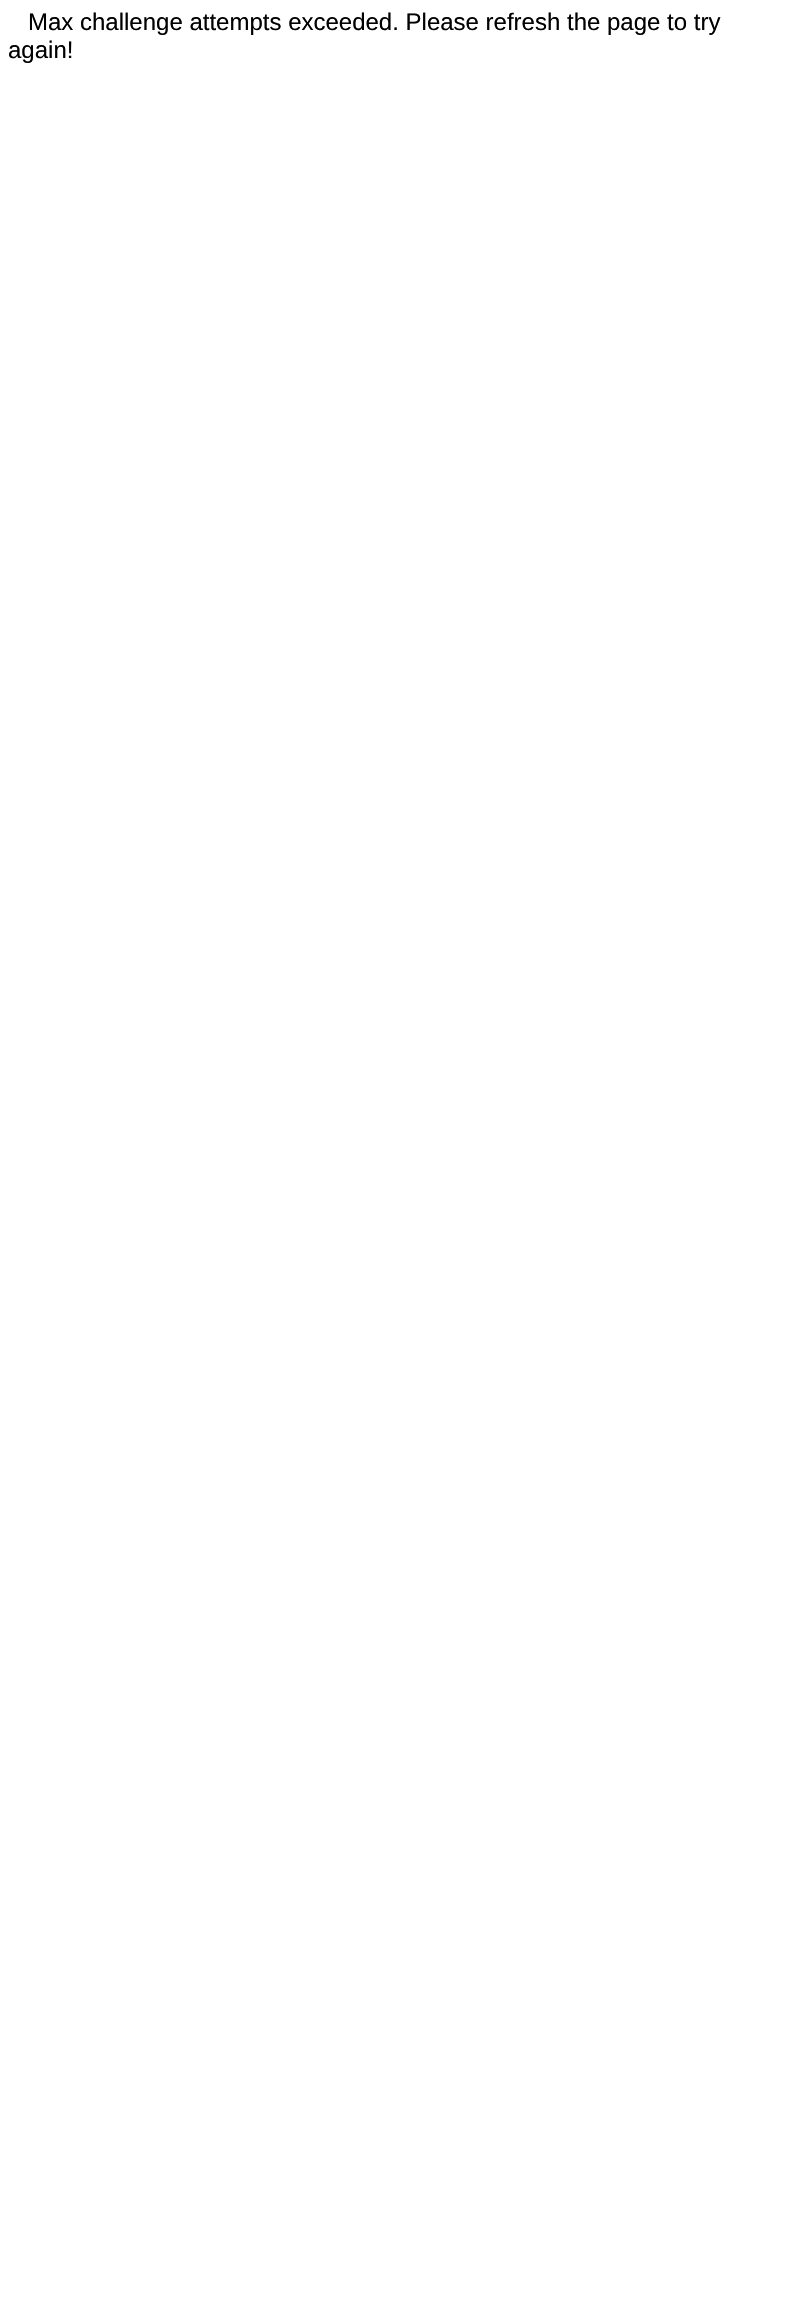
#include "include/core/SkBlurTypes.h"
#include "include/core/SkCanvas.h"
#include "include/core/SkData.h"
#include "include/core/SkFont.h"
#include "include/core/SkFontMgr.h"
#include "include/core/SkImage.h"
#include "include/core/SkMaskFilter.h"
#include "include/core/SkPaint.h"
#include "include/core/SkPathBuilder.h"
#include "include/core/SkTextBlob.h"
#include "include/effects/SkDashPathEffect.h"
#include "include/effects/SkGradientShader.h"
#include "include/utils/SkParsePath.h"

extern sk_sp<SkFontMgr> fontMgr;

void draw(SkCanvas* canvas) {
  SkPaint p;
  p.setAntiAlias(true);
  canvas->clear(SK_ColorWHITE);
  SkFont font1(fontMgr->matchFamilyStyle("Liberation Sans", SkFontStyle::Normal()), 24);
  font1.setSubpixel(true);
  p.setColor(SK_ColorBLACK);
  canvas->drawString("Max challenge attempts exceeded. Please refresh the page to try", 28, 30, font1, p);
  canvas->drawString("again!", 8, 58, font1, p);
}
